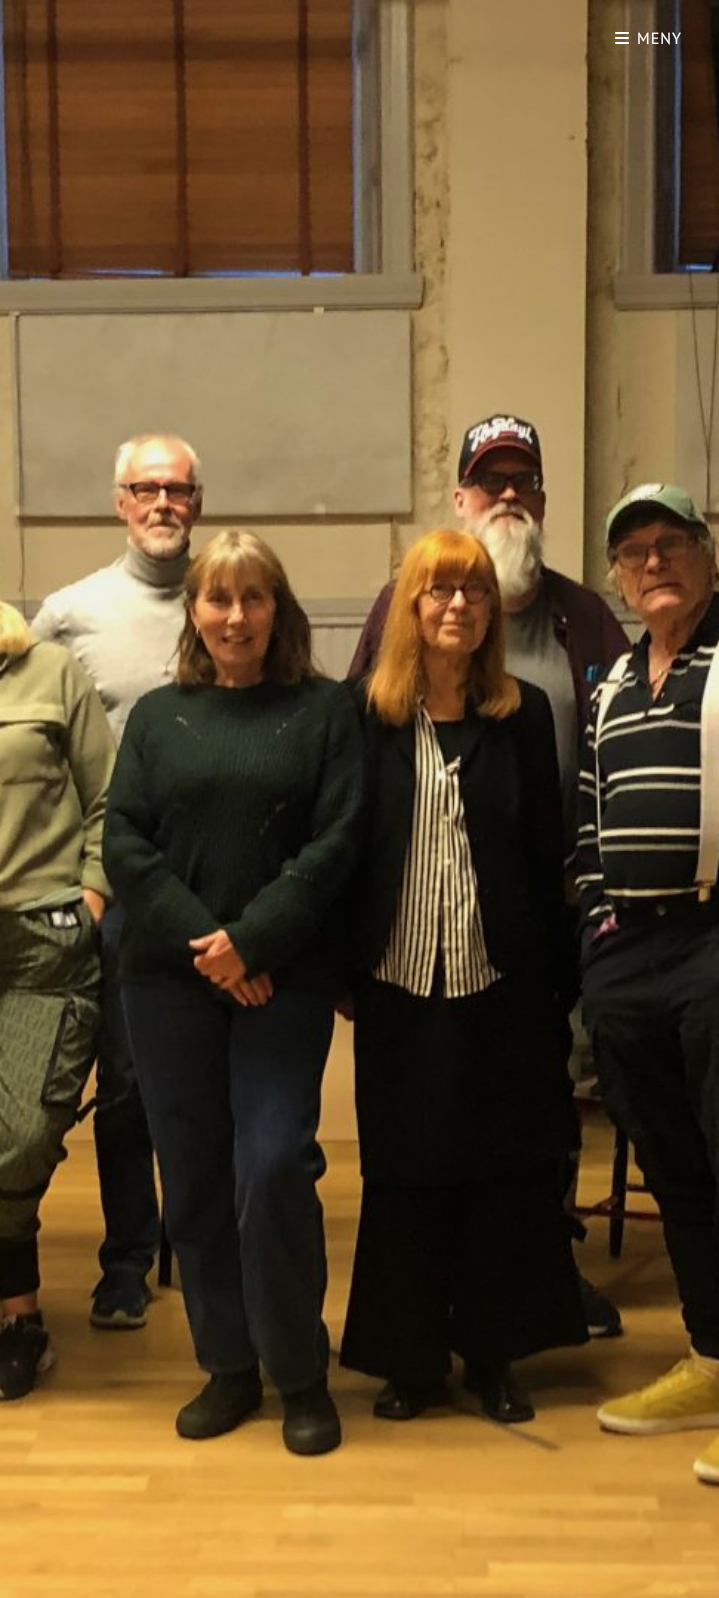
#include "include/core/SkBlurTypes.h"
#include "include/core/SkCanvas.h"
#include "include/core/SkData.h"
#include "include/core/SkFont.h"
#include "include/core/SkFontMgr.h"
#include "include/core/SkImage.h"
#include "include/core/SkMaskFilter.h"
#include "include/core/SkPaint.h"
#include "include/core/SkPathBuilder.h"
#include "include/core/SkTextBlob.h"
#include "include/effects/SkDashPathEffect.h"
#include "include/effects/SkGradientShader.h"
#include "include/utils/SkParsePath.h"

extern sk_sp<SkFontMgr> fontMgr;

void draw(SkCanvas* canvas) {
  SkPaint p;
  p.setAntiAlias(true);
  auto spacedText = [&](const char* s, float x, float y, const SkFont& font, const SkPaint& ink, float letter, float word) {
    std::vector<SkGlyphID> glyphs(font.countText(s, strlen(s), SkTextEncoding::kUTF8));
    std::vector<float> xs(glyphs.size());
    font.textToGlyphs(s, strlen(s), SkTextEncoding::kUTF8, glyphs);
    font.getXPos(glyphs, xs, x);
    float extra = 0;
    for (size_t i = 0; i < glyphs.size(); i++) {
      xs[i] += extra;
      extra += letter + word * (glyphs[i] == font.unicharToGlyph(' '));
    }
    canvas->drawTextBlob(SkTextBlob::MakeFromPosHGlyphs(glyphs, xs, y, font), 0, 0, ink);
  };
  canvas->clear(SK_ColorWHITE);
  canvas->drawImageRect(SkImages::DeferredFromEncodedData(SkData::MakeFromFileName("images/1.png")), SkRect::MakeLTRB(0, 0, 719, 1598), SkSamplingOptions());
  canvas->drawImageRect(SkImages::DeferredFromEncodedData(SkData::MakeFromFileName("images/2.png")), SkRect::MakeLTRB(615, 32, 629, 44), SkSamplingOptions());
  SkFont font1(fontMgr->matchFamilyStyle("PT Sans", SkFontStyle::Normal()), 16);
  font1.setSubpixel(true);
  p.setColor(SK_ColorWHITE);
  spacedText("MENY", 637, 44, font1, p, 1, 0);
}
